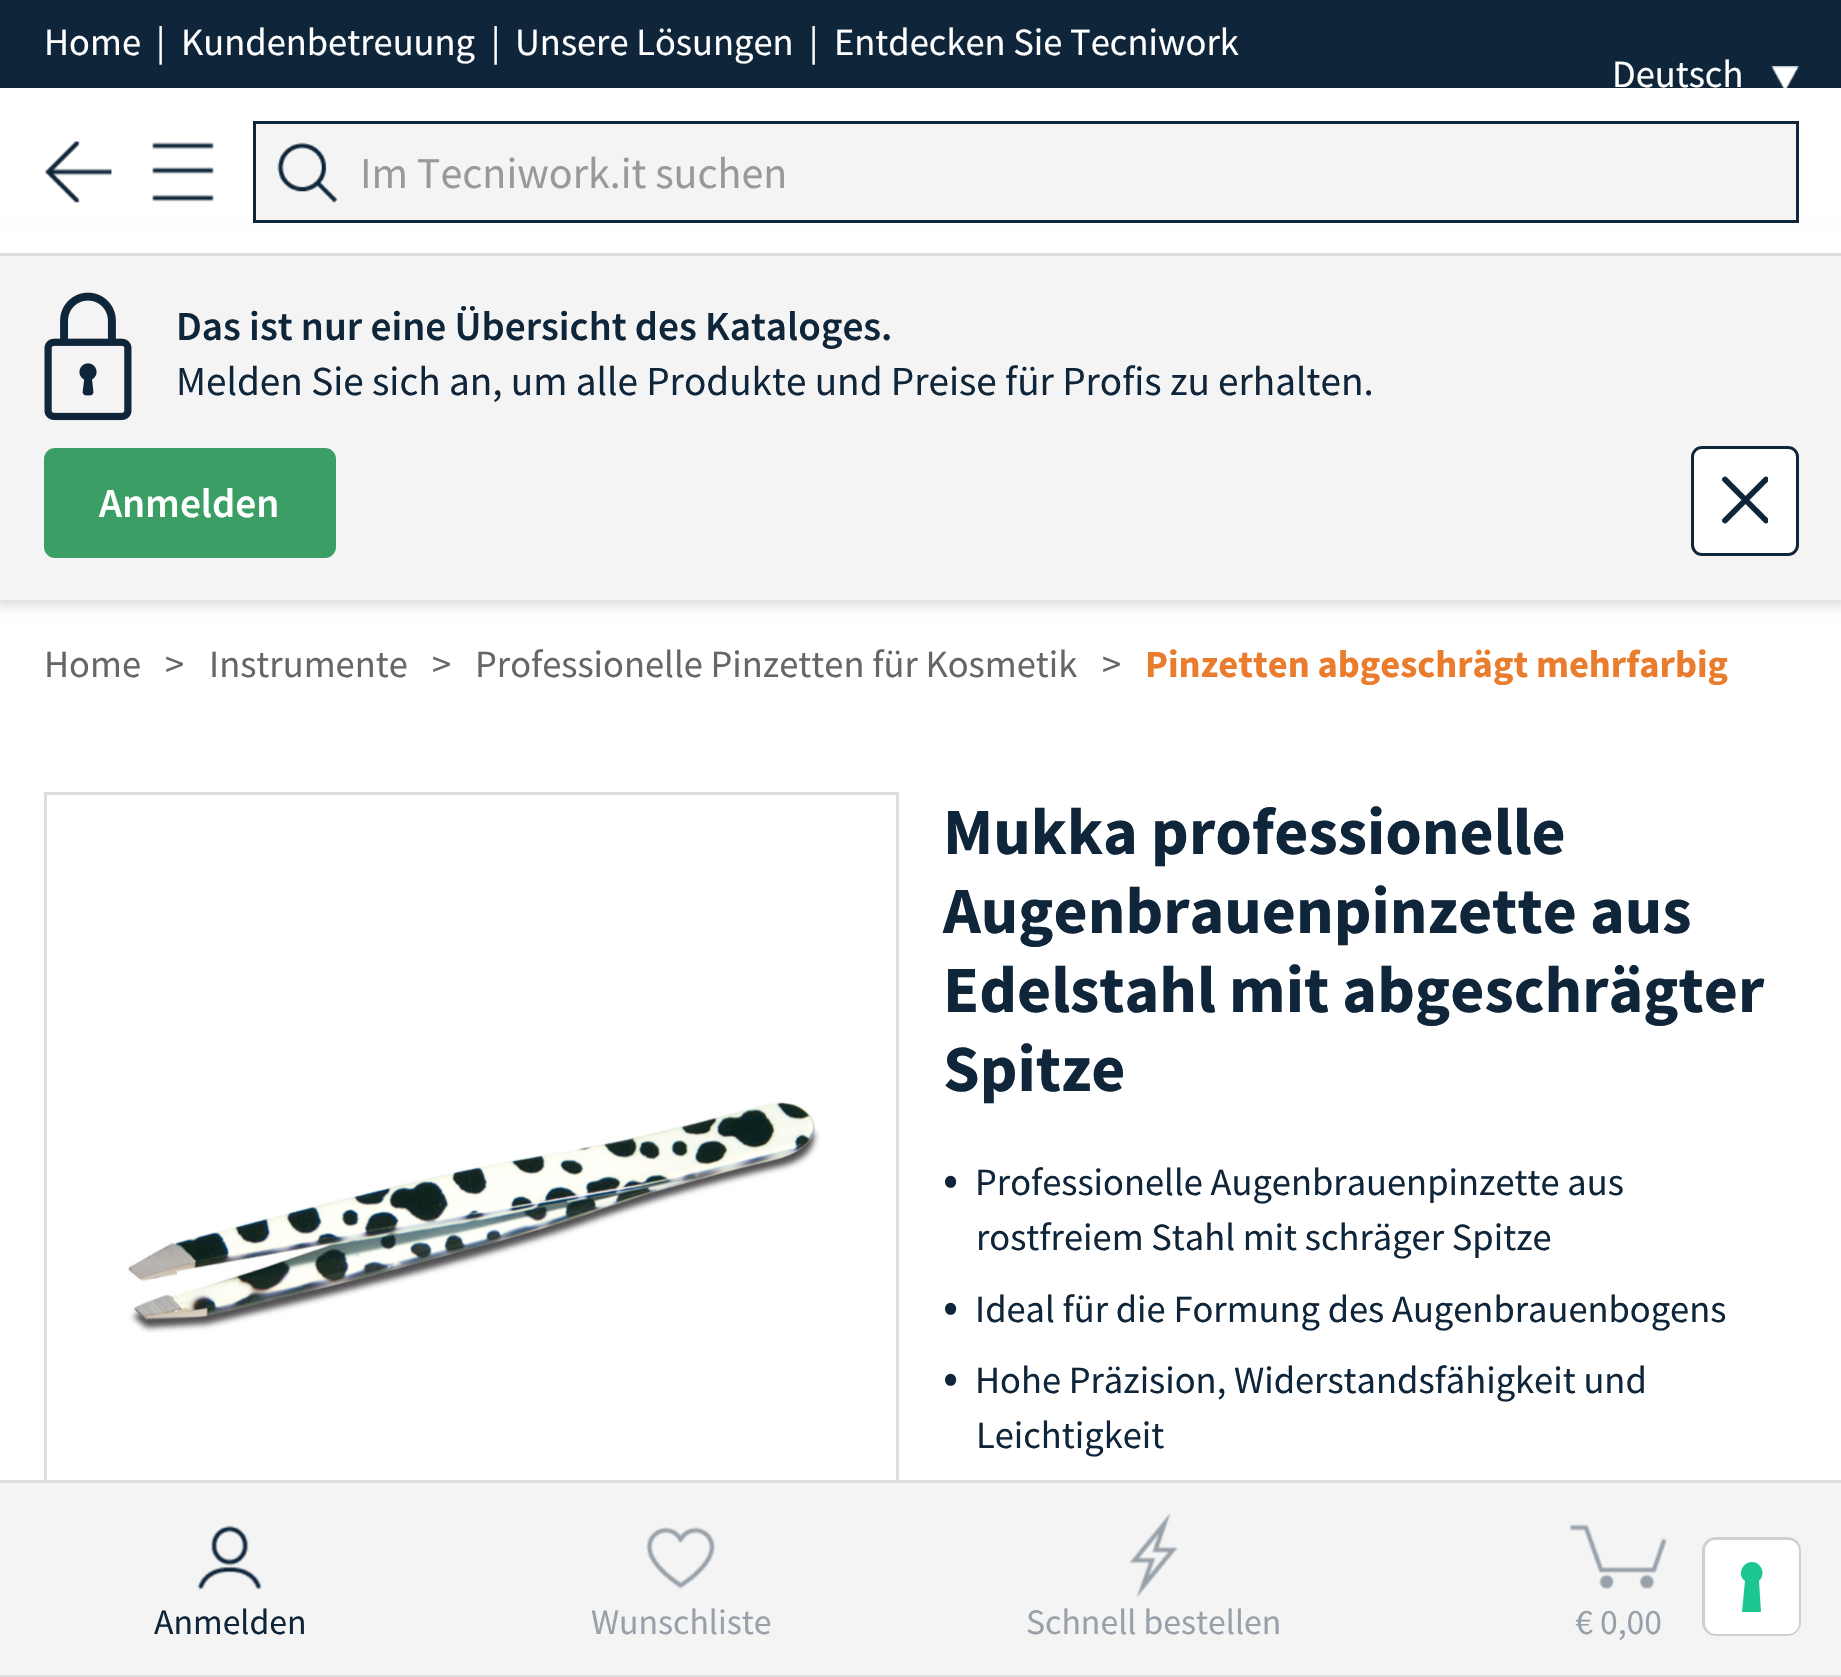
#include "include/core/SkBlurTypes.h"
#include "include/core/SkCanvas.h"
#include "include/core/SkData.h"
#include "include/core/SkFont.h"
#include "include/core/SkFontMgr.h"
#include "include/core/SkImage.h"
#include "include/core/SkMaskFilter.h"
#include "include/core/SkPaint.h"
#include "include/core/SkPathBuilder.h"
#include "include/core/SkTextBlob.h"
#include "include/effects/SkDashPathEffect.h"
#include "include/effects/SkGradientShader.h"
#include "include/utils/SkParsePath.h"

extern sk_sp<SkFontMgr> fontMgr;

void draw(SkCanvas* canvas) {
  SkPaint p;
  p.setAntiAlias(true);
  canvas->clear(SK_ColorWHITE);
  p.setColor(SkColorSetRGB(15, 37, 58));
  canvas->drawRect(SkRect::MakeLTRB(0, 0, 1841, 88), p);
  canvas->drawImageRect(SkImages::DeferredFromEncodedData(SkData::MakeFromFileName("images/1.png")), SkRect::MakeLTRB(1771, 66, 1799, 88), SkSamplingOptions());
  p.setColor(SkColorSetARGB(51, 0, 0, 0));
  p.setMaskFilter(SkMaskFilter::MakeBlur(kNormal_SkBlurStyle, 8));
  canvas->drawRect(SkRect::MakeLTRB(-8, 242, 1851, 602), p);
  p.setMaskFilter(nullptr);
  p.setColor(SK_ColorWHITE);
  canvas->drawRect(SkRect::MakeLTRB(0, 229, 1841, 253), p);
  p.setColor(SkColorSetRGB(221, 221, 221));
  canvas->drawRect(SkRect::MakeLTRB(0, 253, 1841, 256), p);
  canvas->drawImageRect(SkImages::DeferredFromEncodedData(SkData::MakeFromFileName("images/2.png")), SkRect::MakeLTRB(45, 141, 112, 203), SkSamplingOptions());
  canvas->drawImageRect(SkImages::DeferredFromEncodedData(SkData::MakeFromFileName("images/3.png")), SkRect::MakeLTRB(152, 142, 214, 202), SkSamplingOptions());
  p.setColor(SkColorSetRGB(15, 37, 58));
  canvas->drawRect(SkRect::MakeLTRB(253, 121, 1799, 124), p);
  canvas->drawRect(SkRect::MakeLTRB(1796, 121, 1799, 223), p);
  canvas->drawRect(SkRect::MakeLTRB(253, 220, 1799, 223), p);
  canvas->drawRect(SkRect::MakeLTRB(253, 121, 256, 223), p);
  p.setColor(SkColorSetRGB(244, 244, 244));
  canvas->drawRect(SkRect::MakeLTRB(256, 124, 1796, 220), p);
  canvas->drawImageRect(SkImages::DeferredFromEncodedData(SkData::MakeFromFileName("images/4.png")), SkRect::MakeLTRB(277, 142, 338, 203), SkSamplingOptions());
  p.setStyle(SkPaint::kStroke_Style);
  p.setStrokeWidth(3);
  p.setColor(SkColorSetRGB(221, 221, 221));
  canvas->drawRect(SkRect::MakeLTRB(45.5f, 793.5f, 897.5f, 1645.5f), p);
  p.setStyle(SkPaint::kFill_Style);
  p.setColor(SkColorSetRGB(244, 244, 244));
  canvas->drawRect(SkRect::MakeLTRB(0, 1483, 1841, 1675), p);
  p.setColor(SkColorSetRGB(221, 221, 221));
  canvas->drawRect(SkRect::MakeLTRB(0, 1480, 1841, 1483), p);
  canvas->drawRect(SkRect::MakeLTRB(0, 1675, 1841, 1677), p);
  canvas->drawImageRect(SkImages::DeferredFromEncodedData(SkData::MakeFromFileName("images/5.png")), SkRect::MakeLTRB(197, 1525, 262, 1590), SkSamplingOptions());
  canvas->drawImageRect(SkImages::DeferredFromEncodedData(SkData::MakeFromFileName("images/6.png")), SkRect::MakeLTRB(646, 1527, 716, 1589), SkSamplingOptions());
  canvas->drawImageRect(SkImages::DeferredFromEncodedData(SkData::MakeFromFileName("images/7.png")), SkRect::MakeLTRB(1129, 1513, 1178, 1597), SkSamplingOptions());
  canvas->drawImageRect(SkImages::DeferredFromEncodedData(SkData::MakeFromFileName("images/8.png")), SkRect::MakeLTRB(1569, 1524, 1667, 1589), SkSamplingOptions());
  p.setColor(SkColorSetRGB(244, 244, 244));
  canvas->drawRect(SkRect::MakeLTRB(0, 256, 1841, 600), p);
  canvas->drawImageRect(SkImages::DeferredFromEncodedData(SkData::MakeFromFileName("images/9.png")), SkRect::MakeLTRB(44, 292, 132, 421), SkSamplingOptions());
  p.setColor(SkColorSetRGB(59, 159, 101));
  canvas->drawRoundRect(SkRect::MakeLTRB(44, 448, 336, 558), 11, 11, p);
  p.setColor(SK_ColorWHITE);
  canvas->drawRoundRect(SkRect::MakeLTRB(1692.5f, 447.5f, 1797.5f, 554.5f), 9.5f, 9.5f, p);
  p.setStyle(SkPaint::kStroke_Style);
  p.setColor(SkColorSetRGB(15, 37, 58));
  canvas->drawRoundRect(SkRect::MakeLTRB(1692.5f, 447.5f, 1797.5f, 554.5f), 9.5f, 9.5f, p);
  canvas->save();
  canvas->clipRect(SkRect::MakeLTRB(1722, 476, 1768, 525));
  p.setStrokeWidth(5.8f);
  p.setStrokeCap(SkPaint::kRound_Cap);
  canvas->drawPath(SkPathBuilder().moveTo(1725, 479.5f).lineTo(1766, 520.5f).moveTo(1725, 520.5f).lineTo(1766, 479.5f).detach(), p);
  canvas->restore();
  canvas->drawImageRect(SkImages::DeferredFromEncodedData(SkData::MakeFromFileName("images/10.png")), SkRect::MakeLTRB(128, 1102, 820, 1333), SkSamplingOptions());
  p.setStrokeWidth(3);
  p.setStrokeCap(SkPaint::kButt_Cap);
  p.setColor(SkColorSetRGB(207, 207, 207));
  canvas->drawRoundRect(SkRect::MakeLTRB(1703.5f, 1538.5f, 1799.5f, 1634.5f), 12.5f, 12.5f, p);
  p.setStyle(SkPaint::kFill_Style);
  p.setColor(SK_ColorWHITE);
  canvas->drawRoundRect(SkRect::MakeLTRB(1705, 1540, 1799, 1634), 11, 11, p);
  p.setColor(SkColorSetRGB(28, 198, 145));
  canvas->drawPath(SkPathBuilder(SkPathFillType::kEvenOdd).moveTo(1752, 1562).cubicTo(1762, 1562, 1766, 1575, 1759, 1581).lineTo(1761, 1612).lineTo(1742, 1612).lineTo(1745, 1581).cubicTo(1737, 1575, 1742, 1562, 1752, 1562).close().detach(), p);
  SkFont font1(fontMgr->matchFamilyStyle("Source Sans Pro", SkFontStyle::Normal()), 38.5f);
  font1.setSubpixel(true);
  p.setColor(SK_ColorWHITE);
  canvas->drawString("Home", 44, 55, font1, p);
  canvas->drawString("|", 156, 55, font1, p);
  canvas->drawString("Kundenbetreuung", 181, 55, font1, p);
  canvas->drawString("|", 491, 55, font1, p);
  canvas->drawString("Unsere Lösungen", 515, 55, font1, p);
  canvas->drawString("|", 809, 55, font1, p);
  canvas->drawString("Entdecken Sie Tecniwork", 834, 55, font1, p);
  canvas->drawString("Deutsch", 1612, 87, font1, p);
  SkFont font2(fontMgr->matchFamilyStyle("Source Sans Pro", SkFontStyle::Normal()), 44);
  font2.setSubpixel(true);
  p.setColor(SkColorSetRGB(153, 153, 153));
  canvas->drawString("Im Tecniwork.it suchen", 360, 188, font2, p);
  SkFont font3(fontMgr->matchFamilyStyle("Source Sans Pro", SkFontStyle::Normal()), 35.75f);
  font3.setSubpixel(true);
  p.setColor(SkColorSetRGB(15, 37, 58));
  canvas->drawString("Anmelden", 154, 1634, font3, p);
  p.setColor(SkColorSetRGB(152, 161, 170));
  canvas->drawString("Wunschliste", 591, 1634, font3, p);
  canvas->drawString("Schnell bestellen", 1026, 1634, font3, p);
  canvas->drawString("€ 0,00", 1575, 1634, font3, p);
  SkFont font4(fontMgr->matchFamilyStyle("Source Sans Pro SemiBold", SkFontStyle(600, SkFontStyle::kNormal_Width, SkFontStyle::kUpright_Slant)), 41.25f);
  font4.setSubpixel(true);
  p.setColor(SkColorSetRGB(15, 37, 58));
  canvas->drawString("Das ist nur eine Übersicht des Kataloges.", 176, 340, font4, p);
  SkFont font5(fontMgr->matchFamilyStyle("Source Sans Pro", SkFontStyle::Normal()), 41.25f);
  font5.setSubpixel(true);
  canvas->drawString("Melden Sie sich an, um alle Produkte und Preise für Profis zu erhalten.", 176, 395, font5, p);
  p.setColor(SK_ColorWHITE);
  canvas->drawString("Anmelden", 99, 517, font4, p);
  p.setColor(SkColorSetRGB(102, 102, 102));
  canvas->drawString("Home", 44, 677, font1, p);
  canvas->drawString(">", 165, 677, font1, p);
  canvas->drawString("Instrumente", 209, 677, font1, p);
  canvas->drawString(">", 432, 677, font1, p);
  canvas->drawString("Professionelle Pinzetten für Kosmetik", 475, 677, font1, p);
  canvas->drawString(">", 1102, 677, font1, p);
  SkFont font6(fontMgr->matchFamilyStyle("Source Sans Pro", SkFontStyle::Bold()), 38.5f);
  font6.setSubpixel(true);
  p.setColor(SkColorSetRGB(234, 125, 45));
  canvas->drawString("Pinzetten abgeschrägt mehrfarbig", 1145, 677, font6, p);
  SkFont font7(fontMgr->matchFamilyStyle("Source Sans Pro", SkFontStyle::Bold()), 66);
  font7.setSubpixel(true);
  p.setColor(SkColorSetRGB(15, 37, 58));
  canvas->drawString("Mukka professionelle", 943, 854, font7, p);
  canvas->drawString("Augenbrauenpinzette aus", 943, 933, font7, p);
  canvas->drawString("Edelstahl mit abgeschrägter", 943, 1012, font7, p);
  canvas->drawString("Spitze", 943, 1091, font7, p);
  SkFont font8(fontMgr->matchFamilyStyle("Source Sans Pro", SkFontStyle::Normal()), 50);
  font8.setSubpixel(true);
  canvas->drawString("•", 943, 1195, font8, p);
  canvas->drawString("Professionelle Augenbrauenpinzette aus", 975, 1195, font1, p);
  canvas->drawString("rostfreiem Stahl mit schräger Spitze", 976, 1250, font1, p);
  canvas->drawString("•", 943, 1322, font8, p);
  canvas->drawString("Ideal für die Formung des Augenbrauenbogens", 975, 1322, font1, p);
  canvas->drawString("•", 943, 1393, font8, p);
  canvas->drawString("Hohe Präzision, Widerstandsfähigkeit und", 975, 1393, font1, p);
  canvas->drawString("Leichtigkeit", 976, 1448, font1, p);
}
